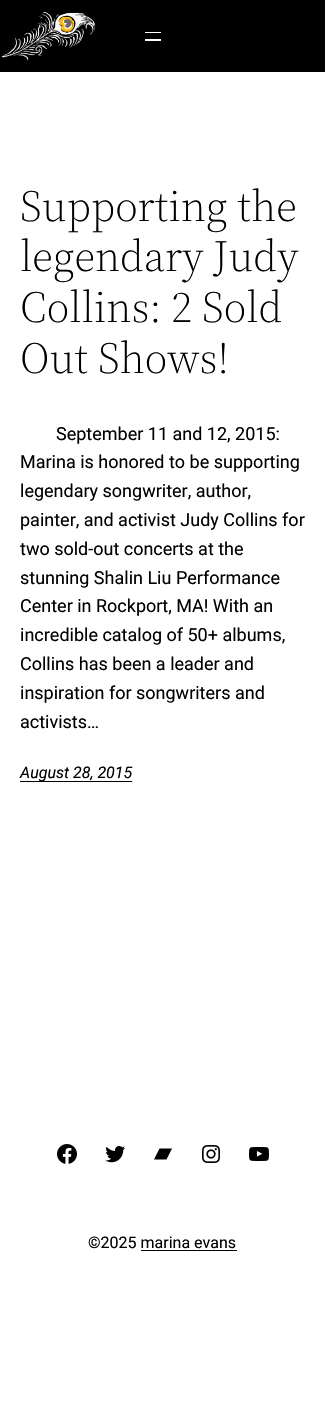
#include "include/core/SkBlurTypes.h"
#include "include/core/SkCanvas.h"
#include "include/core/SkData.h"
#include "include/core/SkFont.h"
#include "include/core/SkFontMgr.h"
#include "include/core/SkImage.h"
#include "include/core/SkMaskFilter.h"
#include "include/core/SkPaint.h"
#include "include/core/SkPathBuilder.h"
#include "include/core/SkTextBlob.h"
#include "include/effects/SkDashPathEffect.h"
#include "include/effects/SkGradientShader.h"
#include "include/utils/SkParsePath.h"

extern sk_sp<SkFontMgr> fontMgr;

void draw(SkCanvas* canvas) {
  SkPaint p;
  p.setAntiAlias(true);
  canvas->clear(SK_ColorWHITE);
  p.setColor(SK_ColorBLACK);
  canvas->drawRect(SkRect::MakeLTRB(0, 0, 325, 72), p);
  canvas->drawImageRect(SkImages::DeferredFromEncodedData(SkData::MakeFromFileName("images/1.png")), SkRect::MakeLTRB(1, 11, 96, 61), SkSamplingOptions());
  p.setColor(SK_ColorWHITE);
  canvas->drawRect(SkRect::MakeLTRB(145, 32, 161, 33), p);
  canvas->drawRect(SkRect::MakeLTRB(145, 39, 161, 41), p);
  p.setColor(SK_ColorBLACK);
  canvas->drawRect(SkRect::MakeLTRB(20, 781, 132, 782), p);
  canvas->drawImageRect(SkImages::DeferredFromEncodedData(SkData::MakeFromFileName("images/2.png")), SkRect::MakeLTRB(57, 1144, 77, 1164), SkSamplingOptions());
  canvas->drawImageRect(SkImages::DeferredFromEncodedData(SkData::MakeFromFileName("images/3.png")), SkRect::MakeLTRB(105, 1146, 125, 1163), SkSamplingOptions());
  canvas->drawPath(SkPathBuilder().moveTo(166.5f, 1159.5f).lineTo(154, 1159.5f).lineTo(159.5f, 1148.5f).lineTo(172, 1148.5f).lineTo(166.5f, 1159.5f).detach(), p);
  canvas->drawImageRect(SkImages::DeferredFromEncodedData(SkData::MakeFromFileName("images/4.png")), SkRect::MakeLTRB(202, 1145, 220, 1163), SkSamplingOptions());
  canvas->drawImageRect(SkImages::DeferredFromEncodedData(SkData::MakeFromFileName("images/5.png")), SkRect::MakeLTRB(249, 1147, 269, 1161), SkSamplingOptions());
  canvas->drawRect(SkRect::MakeLTRB(141, 1250, 237, 1251), p);
  SkFont font1(fontMgr->matchFamilyStyle("Source Serif 4", SkFontStyle(300, SkFontStyle::kNormal_Width, SkFontStyle::kUpright_Slant)), 44);
  font1.setSubpixel(true);
  canvas->drawString("Supporting the", 20, 221, font1, p);
  canvas->drawString("legendary Judy", 20, 271, font1, p);
  canvas->drawString("Collins: 2 Sold", 20, 322, font1, p);
  canvas->drawString("Out Shows!", 20, 373, font1, p);
  SkFont font2(fontMgr->matchFamilyStyle("Roboto", SkFontStyle::Normal()), 18);
  font2.setSubpixel(true);
  canvas->drawString("September 11 and 12, 2015:", 56, 440, font2, p);
  canvas->drawString("Marina is honored to be supporting", 20, 468, font2, p);
  canvas->drawString("legendary songwriter, author,", 20, 497, font2, p);
  canvas->drawString("painter, and activist Judy Collins for", 20, 526, font2, p);
  canvas->drawString("two sold-out concerts at the", 20, 555, font2, p);
  canvas->drawString("stunning Shalin Liu Performance", 20, 584, font2, p);
  canvas->drawString("Center in Rockport, MA! With an", 20, 612, font2, p);
  canvas->drawString("incredible catalog of 50+ albums,", 20, 641, font2, p);
  canvas->drawString("Collins has been a leader and", 20, 670, font2, p);
  canvas->drawString("inspiration for songwriters and", 20, 699, font2, p);
  canvas->drawString("activists…", 20, 728, font2, p);
  SkFont font3(fontMgr->matchFamilyStyle("Roboto", SkFontStyle::Italic()), 16);
  font3.setSubpixel(true);
  canvas->drawString("August 28, 2015", 20, 778, font3, p);
  SkFont font4(fontMgr->matchFamilyStyle("Roboto", SkFontStyle::Normal()), 16);
  font4.setSubpixel(true);
  canvas->drawString("©2025 marina evans", 88, 1248, font4, p);
}
